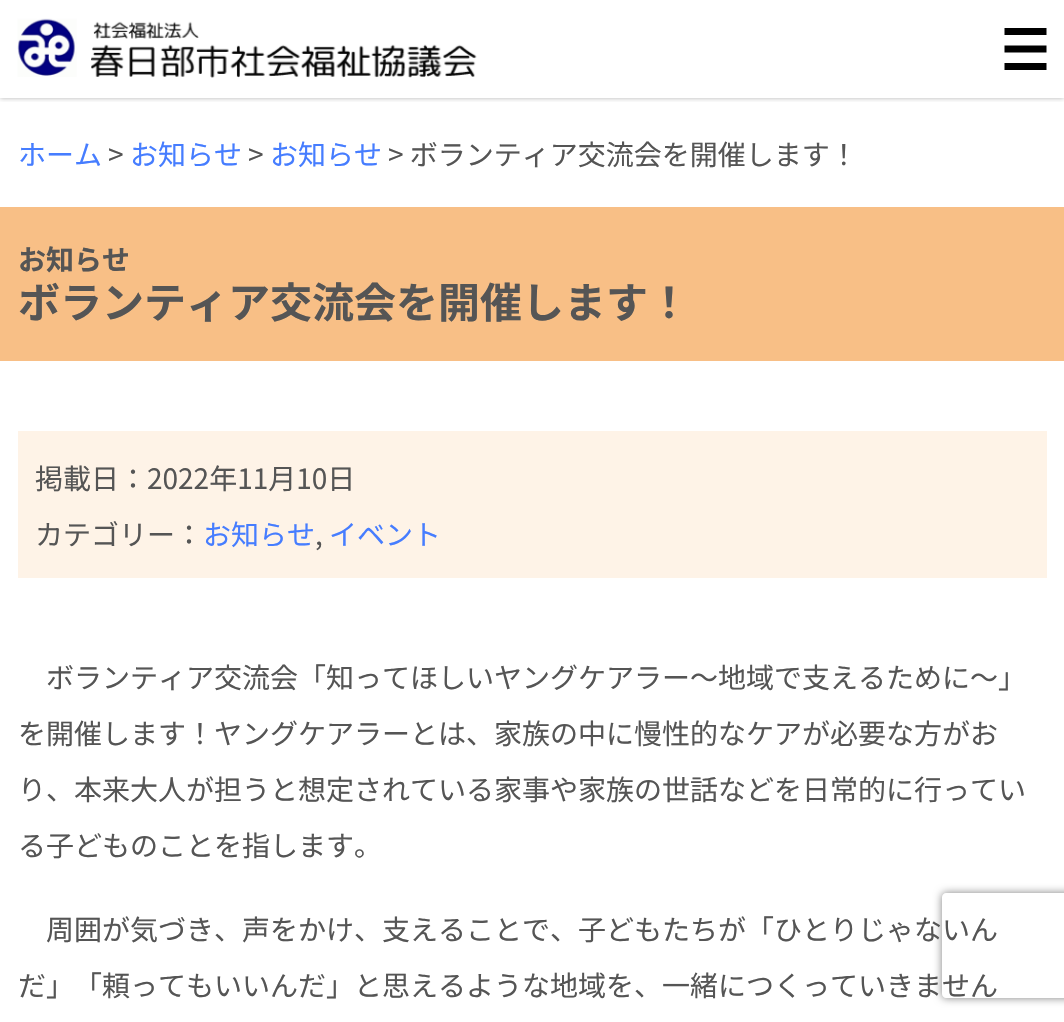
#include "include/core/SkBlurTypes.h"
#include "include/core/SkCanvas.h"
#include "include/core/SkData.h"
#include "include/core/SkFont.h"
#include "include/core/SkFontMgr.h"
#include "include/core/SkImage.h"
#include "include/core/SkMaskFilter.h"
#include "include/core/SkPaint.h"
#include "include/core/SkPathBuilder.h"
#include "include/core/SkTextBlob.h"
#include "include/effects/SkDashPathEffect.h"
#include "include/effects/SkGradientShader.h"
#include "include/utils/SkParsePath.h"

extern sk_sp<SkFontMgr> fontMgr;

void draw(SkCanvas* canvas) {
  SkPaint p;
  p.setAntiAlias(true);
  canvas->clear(SK_ColorWHITE);
  canvas->save();
  canvas->clipRect(SkRect::MakeLTRB(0, 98, 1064, 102));
  p.setColor(SkColorSetARGB(77, 0, 0, 0));
  p.setMaskFilter(SkMaskFilter::MakeBlur(kNormal_SkBlurStyle, 2.5f));
  canvas->drawRect(SkRect::MakeLTRB(0, 0, 1064, 98), p);
  p.setMaskFilter(nullptr);
  canvas->restore();
  canvas->drawImageRect(SkImages::DeferredFromEncodedData(SkData::MakeFromFileName("images/1.png")), SkRect::MakeLTRB(17, 18, 477, 78), SkSamplingOptions());
  canvas->drawImageRect(SkImages::DeferredFromEncodedData(SkData::MakeFromFileName("images/2.png")), SkRect::MakeLTRB(1004, 28, 1047, 70), SkSamplingOptions());
  p.setColor(SkColorSetRGB(248, 191, 134));
  canvas->drawRect(SkRect::MakeLTRB(0, 207, 1064, 361), p);
  p.setColor(SkColorSetRGB(254, 243, 231));
  canvas->drawRect(SkRect::MakeLTRB(18, 431, 1047, 578), p);
  canvas->save();
  canvas->clipPath(SkPathBuilder(SkPathFillType::kEvenOdd).moveTo(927, 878).lineTo(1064, 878).lineTo(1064, 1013).lineTo(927, 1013).close().moveTo(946, 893).lineTo(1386, 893).cubicTo(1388, 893, 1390, 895, 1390, 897).lineTo(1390, 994).cubicTo(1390, 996, 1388, 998, 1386, 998).lineTo(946, 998).cubicTo(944, 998, 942, 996, 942, 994).lineTo(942, 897).cubicTo(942, 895, 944, 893, 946, 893).close().detach(), true);
  p.setColor(SkColorSetRGB(128, 128, 128));
  p.setMaskFilter(SkMaskFilter::MakeBlur(kNormal_SkBlurStyle, 4.5f));
  canvas->drawRoundRect(SkRect::MakeLTRB(942, 893, 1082, 998), 4, 4, p);
  p.setMaskFilter(nullptr);
  canvas->restore();
  SkFont font1(fontMgr->matchFamilyStyle("Noto Sans JP", SkFontStyle::Normal()), 28);
  font1.setSubpixel(true);
  p.setColor(SkColorSetRGB(70, 125, 255));
  canvas->drawString("ホーム", 18, 165, font1, p);
  p.setColor(SkColorSetRGB(85, 85, 85));
  canvas->drawString(">", 108, 165, font1, p);
  p.setColor(SkColorSetRGB(70, 125, 255));
  canvas->drawString("お知らせ", 130, 165, font1, p);
  p.setColor(SkColorSetRGB(85, 85, 85));
  canvas->drawString(">", 248, 165, font1, p);
  p.setColor(SkColorSetRGB(70, 125, 255));
  canvas->drawString("お知らせ", 270, 165, font1, p);
  p.setColor(SkColorSetRGB(85, 85, 85));
  canvas->drawString("> ボランティア交流会を開催します！", 388, 165, font1, p);
  SkFont font2(fontMgr->matchFamilyStyle("Noto Sans JP", SkFontStyle::Bold()), 28);
  font2.setSubpixel(true);
  canvas->drawString("お知らせ", 18, 270, font2, p);
  SkFont font3(fontMgr->matchFamilyStyle("Noto Sans JP", SkFontStyle::Bold()), 42);
  font3.setSubpixel(true);
  canvas->drawString("ボランティア交流会を開催します！", 18, 318, font3, p);
  canvas->drawString("掲載日：2022年11月10日", 35, 489, font1, p);
  canvas->drawString("カテゴリー：", 35, 545, font1, p);
  p.setColor(SkColorSetRGB(70, 125, 255));
  canvas->drawString("お知らせ", 203, 545, font1, p);
  p.setColor(SkColorSetRGB(85, 85, 85));
  canvas->drawString(",", 315, 545, font1, p);
  p.setColor(SkColorSetRGB(70, 125, 255));
  canvas->drawString("イベント", 329, 545, font1, p);
  p.setColor(SkColorSetRGB(85, 85, 85));
  canvas->drawString("ボランティア交流会「知ってほしいヤングケアラー～地域で支えるために～」", 46, 688, font1, p);
  canvas->drawString("を開催します！ヤングケアラーとは、家族の中に慢性的なケアが必要な方がお", 18, 744, font1, p);
  canvas->drawString("り、本来大人が担うと想定されている家事や家族の世話などを日常的に行ってい", 18, 800, font1, p);
  canvas->drawString("る子どものことを指します。", 18, 856, font1, p);
  canvas->drawString("周囲が気づき、声をかけ、支えることで、子どもたちが「ひとりじゃないん", 46, 940, font1, p);
  canvas->drawString("だ」「頼ってもいいんだ」と思えるような地域を、一緒につくっていきません", 18, 996, font1, p);
}
